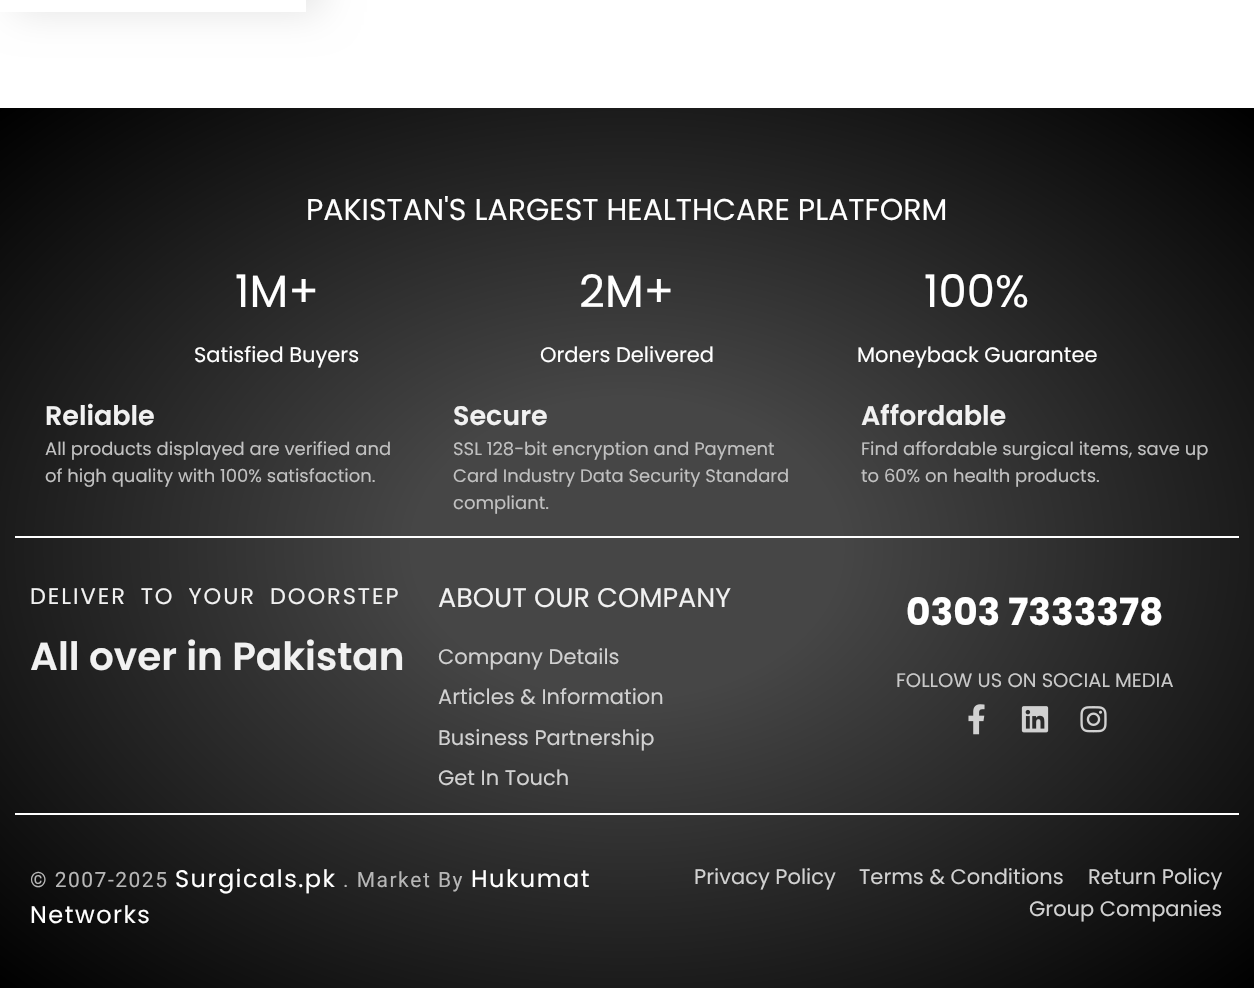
#include "include/core/SkBlurTypes.h"
#include "include/core/SkCanvas.h"
#include "include/core/SkData.h"
#include "include/core/SkFont.h"
#include "include/core/SkFontMgr.h"
#include "include/core/SkImage.h"
#include "include/core/SkMaskFilter.h"
#include "include/core/SkPaint.h"
#include "include/core/SkPathBuilder.h"
#include "include/core/SkTextBlob.h"
#include "include/effects/SkDashPathEffect.h"
#include "include/effects/SkGradientShader.h"
#include "include/utils/SkParsePath.h"

extern sk_sp<SkFontMgr> fontMgr;

void draw(SkCanvas* canvas) {
  SkPaint p;
  p.setAntiAlias(true);
  auto spacedText = [&](const char* s, float x, float y, const SkFont& font, const SkPaint& ink, float letter, float word) {
    std::vector<SkGlyphID> glyphs(font.countText(s, strlen(s), SkTextEncoding::kUTF8));
    std::vector<float> xs(glyphs.size());
    font.textToGlyphs(s, strlen(s), SkTextEncoding::kUTF8, glyphs);
    font.getXPos(glyphs, xs, x);
    float extra = 0;
    for (size_t i = 0; i < glyphs.size(); i++) {
      xs[i] += extra;
      extra += letter + word * (glyphs[i] == font.unicharToGlyph(' '));
    }
    canvas->drawTextBlob(SkTextBlob::MakeFromPosHGlyphs(glyphs, xs, y, font), 0, 0, ink);
  };
  canvas->clear(SK_ColorWHITE);
  canvas->save();
  canvas->clipPath(SkPathBuilder(SkPathFillType::kEvenOdd).moveTo(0, 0).lineTo(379, 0).lineTo(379, 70).lineTo(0, 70).close().moveTo(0, -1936).lineTo(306, -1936).lineTo(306, 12).lineTo(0, 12).close().detach(), true);
  p.setColor(SkColorSetARGB(28, 0, 0, 0));
  p.setMaskFilter(SkMaskFilter::MakeBlur(kNormal_SkBlurStyle, 19));
  canvas->drawRect(SkRect::MakeLTRB(15, -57, 321, 12), p);
  p.setMaskFilter(nullptr);
  canvas->restore();
  {
    const SkColor colors[] = {SkColorSetRGB(70, 70, 70), SK_ColorBLACK};
    const float stops[] = {0.24f, 1};
    SkMatrix m = SkMatrix::Translate(627, 548).preScale(887, 623);
    p.setShader(SkGradientShader::MakeRadial({0, 0}, 1, colors, stops, 2, SkTileMode::kClamp, 0, &m));
    p.setAlpha(255);
  }
  canvas->drawRect(SkRect::MakeLTRB(0, 108, 1254, 988), p);
  p.setShader(nullptr);
  p.setColor(SK_ColorWHITE);
  canvas->drawRect(SkRect::MakeLTRB(15, 536, 1239, 538), p);
  canvas->drawImageRect(SkImages::DeferredFromEncodedData(SkData::MakeFromFileName("images/1.png")), SkRect::MakeLTRB(968, 704, 985, 735), SkSamplingOptions());
  canvas->drawImageRect(SkImages::DeferredFromEncodedData(SkData::MakeFromFileName("images/2.png")), SkRect::MakeLTRB(1021, 706, 1049, 733), SkSamplingOptions());
  canvas->drawImageRect(SkImages::DeferredFromEncodedData(SkData::MakeFromFileName("images/3.png")), SkRect::MakeLTRB(1080, 706, 1107, 733), SkSamplingOptions());
  canvas->drawRect(SkRect::MakeLTRB(15, 813, 1239, 815), p);
  SkFont font1(fontMgr->matchFamilyStyle("Poppins", SkFontStyle::Normal()), 30);
  font1.setSubpixel(true);
  canvas->drawString("PAKISTAN'S LARGEST HEALTHCARE PLATFORM", 306, 220, font1, p);
  SkFont font2(fontMgr->matchFamilyStyle("Poppins", SkFontStyle::Normal()), 45);
  font2.setSubpixel(true);
  canvas->drawString("1M+", 235, 307, font2, p);
  SkFont font3(fontMgr->matchFamilyStyle("Poppins", SkFontStyle::Normal()), 21);
  font3.setSubpixel(true);
  canvas->drawString("Satisfied Buyers", 194, 362, font3, p);
  canvas->drawString("2M+", 579, 307, font2, p);
  canvas->drawString("Orders Delivered", 540, 362, font3, p);
  canvas->drawString("100%", 924, 307, font2, p);
  canvas->drawString("Moneyback Guarantee", 857, 362, font3, p);
  SkFont font4(fontMgr->matchFamilyStyle("Poppins", SkFontStyle(600, SkFontStyle::kNormal_Width, SkFontStyle::kUpright_Slant)), 27);
  font4.setSubpixel(true);
  p.setColor(SkColorSetRGB(241, 241, 241));
  canvas->drawString("Reliable", 45, 425, font4, p);
  SkFont font5(fontMgr->matchFamilyStyle("Poppins", SkFontStyle::Normal()), 18);
  font5.setSubpixel(true);
  p.setColor(SkColorSetRGB(193, 193, 193));
  canvas->drawString("All products displayed are verified and", 45, 455, font5, p);
  canvas->drawString("of high quality with 100% satisfaction.", 45, 482, font5, p);
  p.setColor(SkColorSetRGB(241, 241, 241));
  canvas->drawString("Secure", 453, 425, font4, p);
  p.setColor(SkColorSetRGB(193, 193, 193));
  canvas->drawString("SSL 128-bit encryption and Payment", 453, 455, font5, p);
  canvas->drawString("Card Industry Data Security Standard", 453, 482, font5, p);
  canvas->drawString("compliant.", 453, 509, font5, p);
  p.setColor(SkColorSetRGB(241, 241, 241));
  canvas->drawString("Affordable", 861, 425, font4, p);
  p.setColor(SkColorSetRGB(193, 193, 193));
  canvas->drawString("Find affordable surgical items, save up", 861, 455, font5, p);
  canvas->drawString("to 60% on health products.", 861, 482, font5, p);
  SkFont font6(fontMgr->matchFamilyStyle("Poppins", SkFontStyle::Normal()), 22.5f);
  font6.setSubpixel(true);
  p.setColor(SkColorSetRGB(241, 241, 241));
  spacedText("DELIVER TO YOUR DOORSTEP", 30, 604, font6, p, 1.95f, 6);
  SkFont font7(fontMgr->matchFamilyStyle("Poppins", SkFontStyle(600, SkFontStyle::kNormal_Width, SkFontStyle::kUpright_Slant)), 39);
  font7.setSubpixel(true);
  canvas->drawString("All over in Pakistan", 30, 670, font7, p);
  SkFont font8(fontMgr->matchFamilyStyle("Poppins", SkFontStyle::Normal()), 27);
  font8.setSubpixel(true);
  canvas->drawString("ABOUT OUR COMPANY", 438, 607, font8, p);
  p.setColor(SkColorSetRGB(209, 209, 209));
  canvas->drawString("Company Details", 438, 664, font3, p);
  canvas->drawString("Articles & Information", 438, 704, font3, p);
  canvas->drawString("Business Partnership", 438, 745, font3, p);
  canvas->drawString("Get In Touch", 438, 785, font3, p);
  SkFont font9(fontMgr->matchFamilyStyle("Poppins", SkFontStyle::Bold()), 37.5f);
  font9.setSubpixel(true);
  p.setColor(SK_ColorWHITE);
  canvas->drawString("0303 7333378", 906, 625, font9, p);
  SkFont font10(fontMgr->matchFamilyStyle("Poppins", SkFontStyle::Normal()), 19.5f);
  font10.setSubpixel(true);
  p.setColor(SkColorSetRGB(201, 201, 201));
  canvas->drawString("FOLLOW US ON SOCIAL MEDIA", 896, 687, font10, p);
  SkFont font11(fontMgr->matchFamilyStyle("Roboto", SkFontStyle::Normal()), 21);
  font11.setSubpixel(true);
  p.setColor(SkColorSetRGB(183, 183, 183));
  spacedText("© 2007-2025", 30, 887, font11, p, 1.5f, 0);
  SkFont font12(fontMgr->matchFamilyStyle("Poppins", SkFontStyle::Normal()), 24);
  font12.setSubpixel(true);
  p.setColor(SK_ColorWHITE);
  spacedText("Surgicals.pk", 175, 887, font12, p, 1.5f, 0);
  p.setColor(SkColorSetRGB(183, 183, 183));
  spacedText(". Market By", 343, 887, font11, p, 1.5f, 0);
  p.setColor(SK_ColorWHITE);
  spacedText("Hukumat", 471, 887, font12, p, 1.5f, 0);
  spacedText("Networks", 30, 923, font12, p, 1.5f, 0);
  p.setColor(SkColorSetRGB(209, 209, 209));
  canvas->drawString("Privacy Policy", 694, 884, font3, p);
  canvas->drawString("Terms & Conditions", 859, 884, font3, p);
  canvas->drawString("Return Policy", 1088, 884, font3, p);
  canvas->drawString("Group Companies", 1029, 916, font3, p);
}
